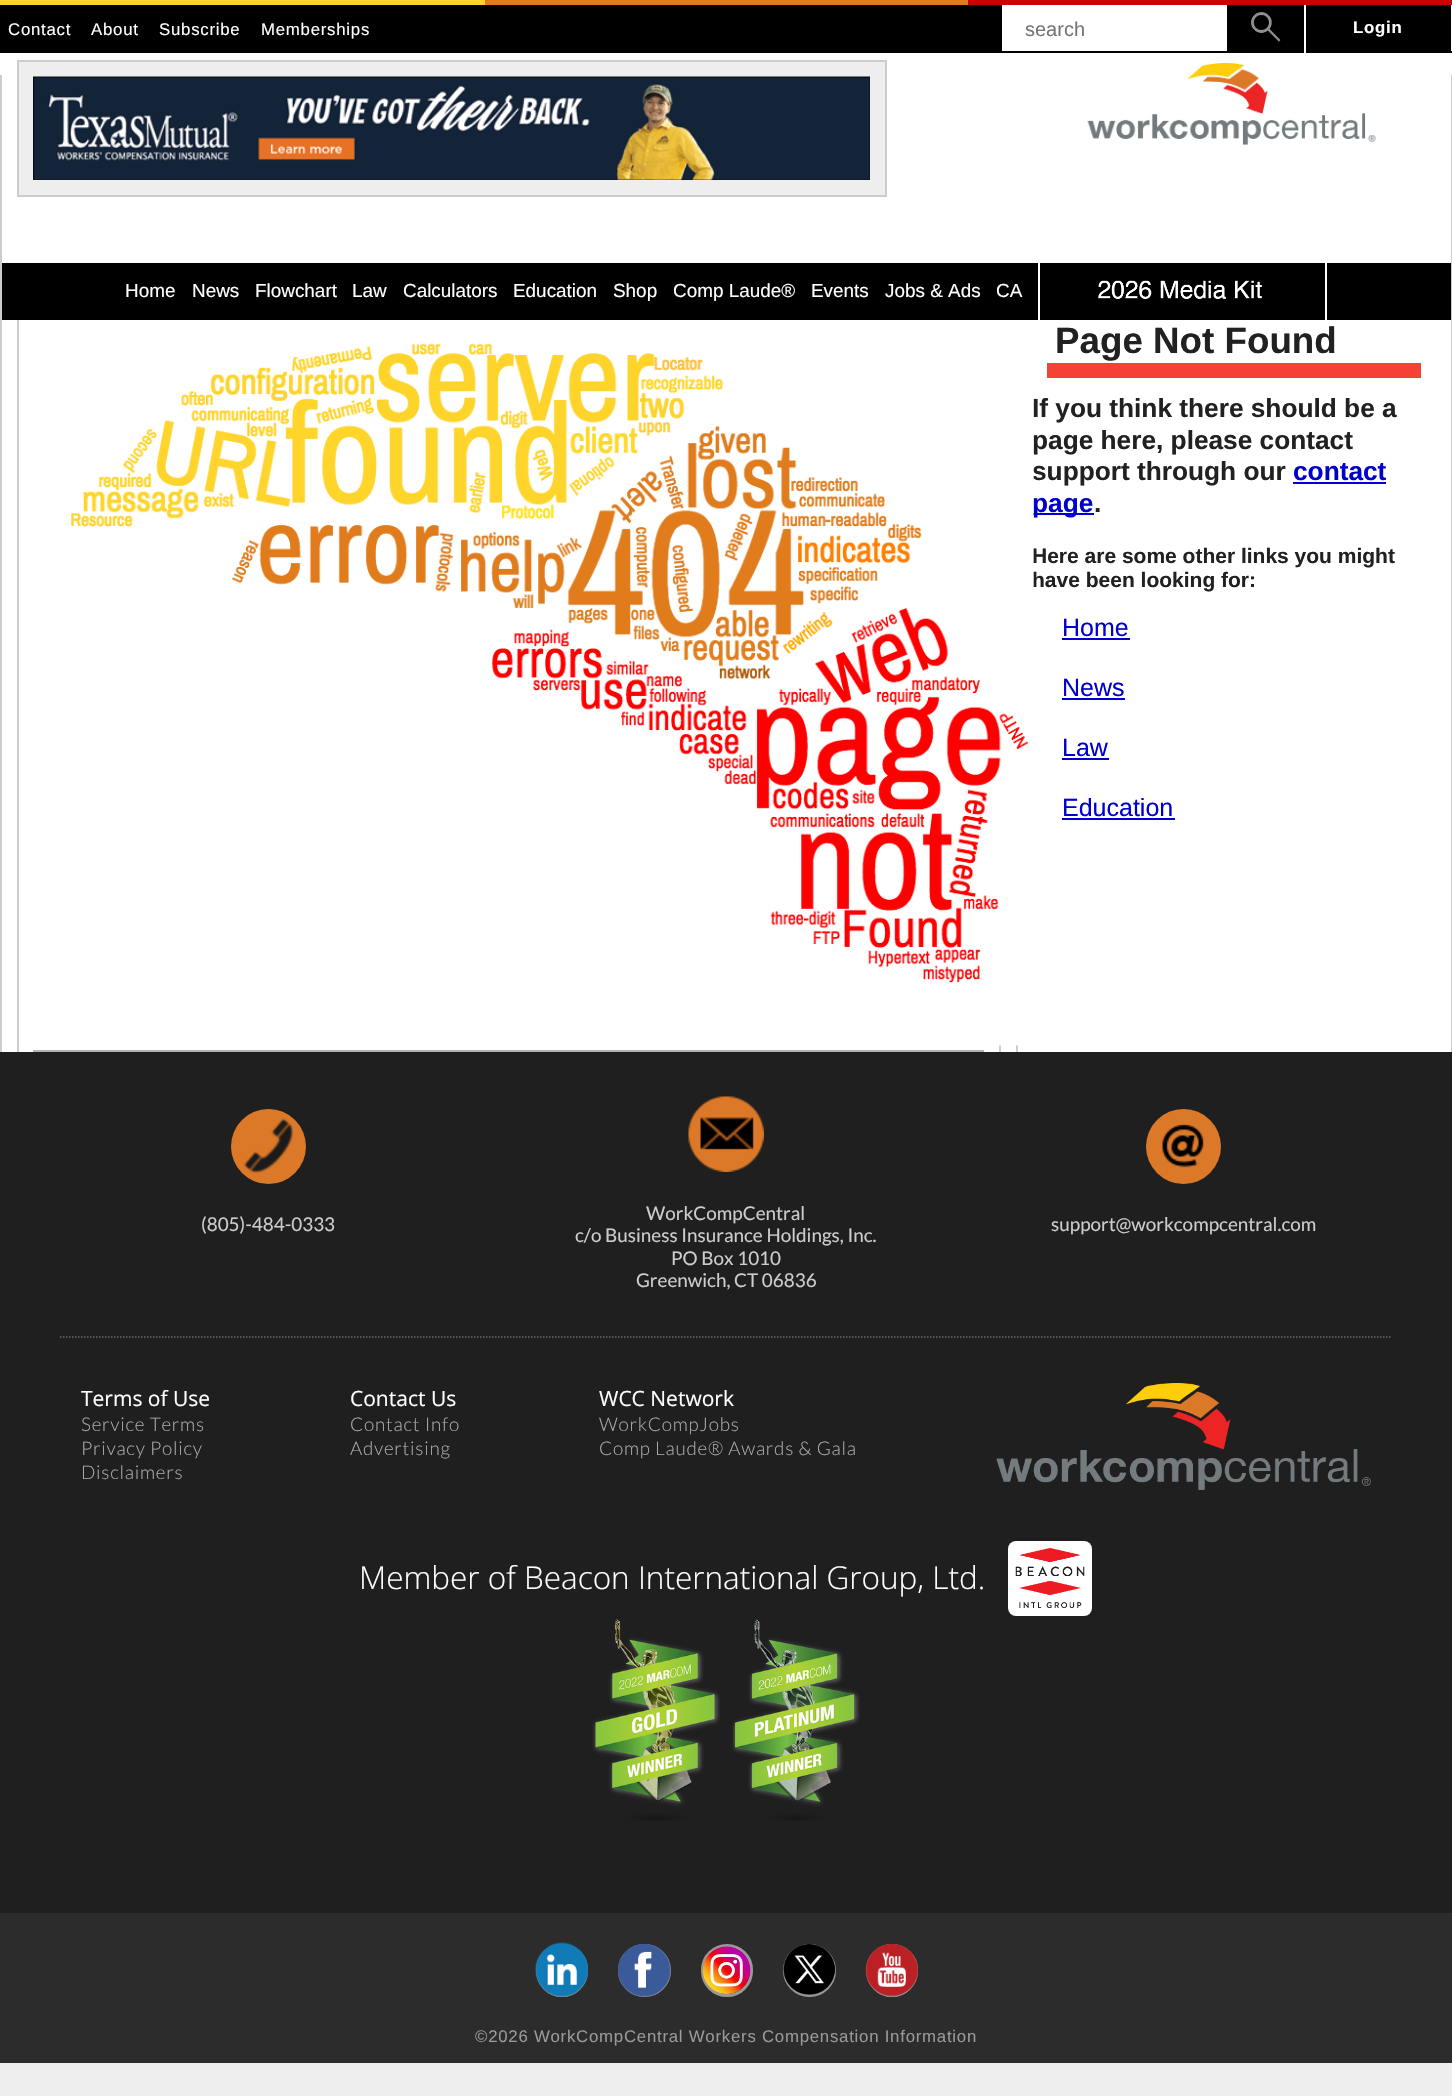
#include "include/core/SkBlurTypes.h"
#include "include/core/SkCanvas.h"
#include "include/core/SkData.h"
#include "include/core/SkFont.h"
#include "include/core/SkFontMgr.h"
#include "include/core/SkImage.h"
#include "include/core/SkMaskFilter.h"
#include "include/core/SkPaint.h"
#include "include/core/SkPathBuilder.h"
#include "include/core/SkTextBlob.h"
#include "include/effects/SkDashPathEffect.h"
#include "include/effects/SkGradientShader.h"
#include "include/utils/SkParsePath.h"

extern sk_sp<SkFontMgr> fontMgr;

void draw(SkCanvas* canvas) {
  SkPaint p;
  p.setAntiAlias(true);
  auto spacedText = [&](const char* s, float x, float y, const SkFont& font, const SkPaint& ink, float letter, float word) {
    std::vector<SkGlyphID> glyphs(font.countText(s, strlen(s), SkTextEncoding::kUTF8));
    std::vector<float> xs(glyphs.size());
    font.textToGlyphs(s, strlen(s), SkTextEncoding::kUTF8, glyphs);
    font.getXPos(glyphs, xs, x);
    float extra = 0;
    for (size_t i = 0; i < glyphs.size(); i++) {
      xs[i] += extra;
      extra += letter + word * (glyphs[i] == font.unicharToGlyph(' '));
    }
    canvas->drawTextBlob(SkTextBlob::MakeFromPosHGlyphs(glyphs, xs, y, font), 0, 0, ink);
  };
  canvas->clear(SkColorSetRGB(238, 238, 238));
  p.setColor(SK_ColorWHITE);
  canvas->drawRect(SkRect::MakeLTRB(0, 53, 1452, 75), p);
  p.setColor(SkColorSetRGB(255, 212, 42));
  canvas->drawRect(SkRect::MakeLTRB(0, 0, 485, 5), p);
  p.setColor(SkColorSetRGB(224, 124, 28));
  canvas->drawRect(SkRect::MakeLTRB(485, 0, 968, 5), p);
  p.setColor(SkColorSetRGB(204, 0, 0));
  canvas->drawRect(SkRect::MakeLTRB(968, 0, 1452, 5), p);
  p.setColor(SK_ColorBLACK);
  canvas->drawRect(SkRect::MakeLTRB(0, 5, 1451, 53), p);
  p.setColor(SK_ColorWHITE);
  canvas->drawRect(SkRect::MakeLTRB(1002, 5, 1227, 51), p);
  canvas->drawImageRect(SkImages::DeferredFromEncodedData(SkData::MakeFromFileName("images/1.png")), SkRect::MakeLTRB(1251, 12, 1281, 42), SkSamplingOptions());
  canvas->drawRect(SkRect::MakeLTRB(1451, 5, 1452, 53), p);
  p.setColor(SK_ColorBLACK);
  canvas->drawRect(SkRect::MakeLTRB(1451, 51, 1452, 53), p);
  p.setColor(SK_ColorWHITE);
  canvas->drawRect(SkRect::MakeLTRB(1304, 5, 1306, 53), p);
  canvas->drawRect(SkRect::MakeLTRB(2, 75, 1451, 263), p);
  p.setColor(SkColorSetRGB(238, 238, 238));
  canvas->drawRect(SkRect::MakeLTRB(18, 61, 886, 196), p);
  p.setStyle(SkPaint::kStroke_Style);
  p.setStrokeWidth(2);
  p.setColor(SkColorSetRGB(204, 204, 204));
  canvas->drawRect(SkRect::MakeLTRB(18, 61, 886, 196), p);
  canvas->drawImageRect(SkImages::DeferredFromEncodedData(SkData::MakeFromFileName("images/2.png")), SkRect::MakeLTRB(33, 76, 870, 180), SkSamplingOptions());
  canvas->drawImageRect(SkImages::DeferredFromEncodedData(SkData::MakeFromFileName("images/3.png")), SkRect::MakeLTRB(1087, 63, 1376, 145), SkSamplingOptions());
  p.setStyle(SkPaint::kFill_Style);
  p.setColor(SK_ColorBLACK);
  canvas->drawRect(SkRect::MakeLTRB(2, 263, 1451, 320), p);
  p.setColor(SK_ColorWHITE);
  canvas->drawRect(SkRect::MakeLTRB(1038, 263, 1040, 320), p);
  canvas->drawImageRect(SkImages::DeferredFromEncodedData(SkData::MakeFromFileName("images/4.png")), SkRect::MakeLTRB(1098, 280, 1262, 299), SkSamplingOptions());
  canvas->drawRect(SkRect::MakeLTRB(1325, 263, 1327, 320), p);
  canvas->drawRect(SkRect::MakeLTRB(2, 320, 1451, 1052), p);
  p.setColor(SkColorSetRGB(204, 204, 204));
  canvas->drawRect(SkRect::MakeLTRB(1451, 75, 1452, 1052), p);
  canvas->drawRect(SkRect::MakeLTRB(0, 75, 2, 1052), p);
  canvas->drawRect(SkRect::MakeLTRB(999, 1045, 1001, 1052), p);
  canvas->drawRect(SkRect::MakeLTRB(17, 320, 19, 1052), p);
  p.setColor(SkColorSetRGB(179, 179, 179));
  canvas->drawRect(SkRect::MakeLTRB(33, 1050, 984, 1052), p);
  p.setColor(SkColorSetRGB(204, 204, 204));
  canvas->drawRect(SkRect::MakeLTRB(1016, 1045, 1018, 1052), p);
  p.setColor(SkColorSetRGB(244, 67, 54));
  canvas->drawRect(SkRect::MakeLTRB(1047, 363, 1421, 378), p);
  p.setColor(SkColorSetRGB(0, 0, 205));
  canvas->drawRect(SkRect::MakeLTRB(1293, 482, 1386, 484), p);
  canvas->drawRect(SkRect::MakeLTRB(1032, 513, 1094, 515), p);
  canvas->drawRect(SkRect::MakeLTRB(1062, 638, 1130, 640), p);
  canvas->drawRect(SkRect::MakeLTRB(1062, 698, 1125, 700), p);
  canvas->drawRect(SkRect::MakeLTRB(1062, 758, 1109, 760), p);
  canvas->drawRect(SkRect::MakeLTRB(1062, 818, 1175, 820), p);
  p.setColor(SkColorSetRGB(31, 31, 31));
  canvas->drawRect(SkRect::MakeLTRB(0, 1052, 1452, 1913), p);
  p.setColor(SkColorSetRGB(220, 121, 40));
  canvas->drawCircle(268.5f, 1146.5f, 37.5f, p);
  canvas->drawImageRect(SkImages::DeferredFromEncodedData(SkData::MakeFromFileName("images/6.png")), SkRect::MakeLTRB(244, 1118, 294, 1174), SkSamplingOptions());
  canvas->drawCircle(726.5f, 1134.5f, 37.5f, p);
  canvas->drawImageRect(SkImages::DeferredFromEncodedData(SkData::MakeFromFileName("images/7.png")), SkRect::MakeLTRB(688, 1096, 764, 1172), SkSamplingOptions());
  canvas->drawCircle(1183.5f, 1146.5f, 37.5f, p);
  canvas->drawImageRect(SkImages::DeferredFromEncodedData(SkData::MakeFromFileName("images/8.png")), SkRect::MakeLTRB(1162, 1124, 1204, 1168), SkSamplingOptions());
  p.setStyle(SkPaint::kStroke_Style);
  p.setStrokeWidth(1.5f);
  p.setColor(SkColorSetRGB(102, 102, 102));
  p.setPathEffect(SkDashPathEffect::Make({{1.5f, 1.5f}}, 0));
  canvas->drawPath(SkPathBuilder().moveTo(60, 1337).lineTo(1392, 1337).detach(), p);
  p.setPathEffect(nullptr);
  canvas->drawImageRect(SkImages::DeferredFromEncodedData(SkData::MakeFromFileName("images/9.png")), SkRect::MakeLTRB(996, 1383, 1371, 1490), SkSamplingOptions());
  p.setStyle(SkPaint::kFill_Style);
  p.setColor(SK_ColorWHITE);
  canvas->drawRoundRect(SkRect::MakeLTRB(1008, 1541, 1092, 1616), 8, 8, p);
  canvas->drawImageRect(SkImages::DeferredFromEncodedData(SkData::MakeFromFileName("images/10.png")), SkRect::MakeLTRB(1015, 1548, 1085, 1608), SkSamplingOptions());
  canvas->drawImageRect(SkImages::DeferredFromEncodedData(SkData::MakeFromFileName("images/11.png")), SkRect::MakeLTRB(592, 1619, 720, 1821), SkSamplingOptions());
  canvas->drawImageRect(SkImages::DeferredFromEncodedData(SkData::MakeFromFileName("images/12.png")), SkRect::MakeLTRB(732, 1619, 860, 1821), SkSamplingOptions());
  p.setColor(SkColorSetRGB(44, 44, 44));
  canvas->drawRect(SkRect::MakeLTRB(0, 1913, 1452, 2063), p);
  p.setStyle(SkPaint::kStroke_Style);
  p.setStrokeWidth(3);
  p.setColor(SkColorSetRGB(153, 153, 153));
  canvas->drawRoundRect(SkRect::MakeLTRB(537.5f, 1945.5f, 586.5f, 1995.5f), 24.5f, 24.5f, p);
  canvas->drawImageRect(SkImages::DeferredFromEncodedData(SkData::MakeFromFileName("images/13.png")), SkRect::MakeLTRB(535, 1942, 588, 1997), SkSamplingOptions());
  canvas->drawCircle(644.5f, 1970.5f, 25, p);
  canvas->drawImageRect(SkImages::DeferredFromEncodedData(SkData::MakeFromFileName("images/14.png")), SkRect::MakeLTRB(618, 1944, 671, 1997), SkSamplingOptions());
  canvas->drawRoundRect(SkRect::MakeLTRB(702.5f, 1945.5f, 751.5f, 1995.5f), 24.5f, 24.5f, p);
  canvas->drawImageRect(SkImages::DeferredFromEncodedData(SkData::MakeFromFileName("images/15.png")), SkRect::MakeLTRB(702, 1946, 751, 1994), SkSamplingOptions());
  canvas->drawCircle(809.5f, 1970.5f, 25, p);
  canvas->drawImageRect(SkImages::DeferredFromEncodedData(SkData::MakeFromFileName("images/16.png")), SkRect::MakeLTRB(783, 1944, 836, 1995), SkSamplingOptions());
  canvas->drawRoundRect(SkRect::MakeLTRB(867.5f, 1945.5f, 916.5f, 1995.5f), 24.5f, 24.5f, p);
  canvas->drawImageRect(SkImages::DeferredFromEncodedData(SkData::MakeFromFileName("images/17.png")), SkRect::MakeLTRB(865, 1944, 918, 1997), SkSamplingOptions());
  SkFont font1(fontMgr->matchFamilyStyle("Liberation Sans", SkFontStyle::Normal()), 16.8f);
  font1.setSubpixel(true);
  p.setStyle(SkPaint::kFill_Style);
  p.setColor(SK_ColorWHITE);
  spacedText("Contact", 8, 35, font1, p, 0.75f, 0);
  spacedText("About", 91, 35, font1, p, 0.75f, 0);
  spacedText("Subscribe", 159, 35, font1, p, 0.75f, 0);
  spacedText("Memberships", 261, 35, font1, p, 0.75f, 0);
  SkFont font2(fontMgr->matchFamilyStyle("Liberation Sans", SkFontStyle::Normal()), 20);
  font2.setSubpixel(true);
  p.setColor(SkColorSetRGB(117, 117, 117));
  canvas->drawString("search", 1025, 36, font2, p);
  SkFont font3(fontMgr->matchFamilyStyle("Liberation Sans", SkFontStyle::Bold()), 16.8f);
  font3.setSubpixel(true);
  p.setColor(SK_ColorWHITE);
  spacedText("Login", 1353, 33, font3, p, 0.75f, 0);
  SkFont font4(fontMgr->matchFamilyStyle("Liberation Sans", SkFontStyle::Normal()), 18.9f);
  font4.setSubpixel(true);
  canvas->drawString("Home", 125, 297, font4, p);
  canvas->drawString("News", 192, 297, font4, p);
  canvas->drawString("Flowchart", 255, 297, font4, p);
  canvas->drawString("Law", 352, 297, font4, p);
  canvas->drawString("Calculators", 403, 297, font4, p);
  canvas->drawString("Education", 513, 297, font4, p);
  canvas->drawString("Shop", 613, 297, font4, p);
  canvas->drawString("Comp Laude®", 673, 297, font4, p);
  canvas->drawString("Events", 811, 297, font4, p);
  canvas->drawString("Jobs & Ads", 885, 297, font4, p);
  canvas->drawString("CA", 996, 297, font4, p);
  SkFont font5(fontMgr->matchFamilyStyle("Liberation Sans", SkFontStyle::Bold()), 36.75f);
  font5.setSubpixel(true);
  p.setColor(SkColorSetRGB(33, 33, 33));
  canvas->drawString("Page Not Found", 1055, 353, font5, p);
  SkFont font6(fontMgr->matchFamilyStyle("Liberation Sans", SkFontStyle::Bold()), 26.25f);
  font6.setSubpixel(true);
  canvas->drawString("If you think there should be a", 1032, 417, font6, p);
  canvas->drawString("page here, please contact", 1032, 449, font6, p);
  canvas->drawString("support through our", 1032, 480, font6, p);
  p.setColor(SkColorSetRGB(0, 0, 205));
  canvas->drawString("contact", 1293, 480, font6, p);
  canvas->drawString("page", 1032, 512, font6, p);
  p.setColor(SkColorSetRGB(33, 33, 33));
  canvas->drawString(".", 1094, 512, font6, p);
  SkFont font7(fontMgr->matchFamilyStyle("Liberation Sans", SkFontStyle::Bold()), 21);
  font7.setSubpixel(true);
  canvas->drawString("Here are some other links you might", 1032, 563, font7, p);
  canvas->drawString("have been looking for:", 1032, 587, font7, p);
  canvas->drawImageRect(SkImages::DeferredFromEncodedData(SkData::MakeFromFileName("images/5.png")), SkRect::MakeLTRB(71, 320, 1034, 1046), SkSamplingOptions());
  SkFont font8(fontMgr->matchFamilyStyle("Liberation Sans", SkFontStyle::Normal()), 25);
  font8.setSubpixel(true);
  p.setColor(SkColorSetRGB(0, 0, 205));
  canvas->drawString("Home", 1062, 636, font8, p);
  canvas->drawString("News", 1062, 696, font8, p);
  canvas->drawString("Law", 1062, 756, font8, p);
  canvas->drawString("Education", 1062, 816, font8, p);
  SkFont font9(fontMgr->matchFamilyStyle("Lato", SkFontStyle::Normal()), 18.9f);
  font9.setSubpixel(true);
  p.setColor(SkColorSetRGB(204, 204, 204));
  canvas->drawString("(805)-484-0333", 201, 1231, font9, p);
  canvas->drawString("WorkCompCentral", 646, 1220, font9, p);
  canvas->drawString("c/o Business Insurance Holdings, Inc.", 575, 1242, font9, p);
  canvas->drawString("PO Box 1010", 671, 1265, font9, p);
  canvas->drawString("Greenwich, CT 06836", 636, 1287, font9, p);
  canvas->drawString("support@workcompcentral.com", 1051, 1231, font9, p);
  SkFont font10(fontMgr->matchFamilyStyle("Open Sans", SkFontStyle::Normal()), 21);
  font10.setSubpixel(true);
  p.setColor(SK_ColorWHITE);
  canvas->drawString("Terms of Use", 81, 1406, font10, p);
  SkFont font11(fontMgr->matchFamilyStyle("Lato", SkFontStyle(300, SkFontStyle::kNormal_Width, SkFontStyle::kUpright_Slant)), 18.9f);
  font11.setSubpixel(true);
  p.setColor(SkColorSetRGB(170, 170, 170));
  spacedText("Service Terms", 81, 1431, font11, p, 0.75f, 0);
  spacedText("Privacy Policy", 81, 1455, font11, p, 0.75f, 0);
  spacedText("Disclaimers", 81, 1479, font11, p, 0.75f, 0);
  p.setColor(SK_ColorWHITE);
  canvas->drawString("Contact Us", 350, 1406, font10, p);
  p.setColor(SkColorSetRGB(170, 170, 170));
  spacedText("Contact Info", 350, 1431, font11, p, 0.75f, 0);
  spacedText("Advertising", 350, 1455, font11, p, 0.75f, 0);
  p.setColor(SK_ColorWHITE);
  canvas->drawString("WCC Network", 599, 1406, font10, p);
  p.setColor(SkColorSetRGB(170, 170, 170));
  spacedText("WorkCompJobs", 599, 1431, font11, p, 0.75f, 0);
  spacedText("Comp Laude® Awards & Gala", 599, 1455, font11, p, 0.75f, 0);
  SkFont font12(fontMgr->matchFamilyStyle("Open Sans", SkFontStyle(300, SkFontStyle::kNormal_Width, SkFontStyle::kUpright_Slant)), 31.5f);
  font12.setSubpixel(true);
  p.setColor(SK_ColorWHITE);
  canvas->drawString("Member of Beacon International Group, Ltd.", 359, 1589, font12, p);
  p.setColor(SkColorSetRGB(153, 153, 153));
  spacedText("©2026 WorkCompCentral Workers Compensation Information", 475, 2042, font1, p, 0.75f, 0);
}
